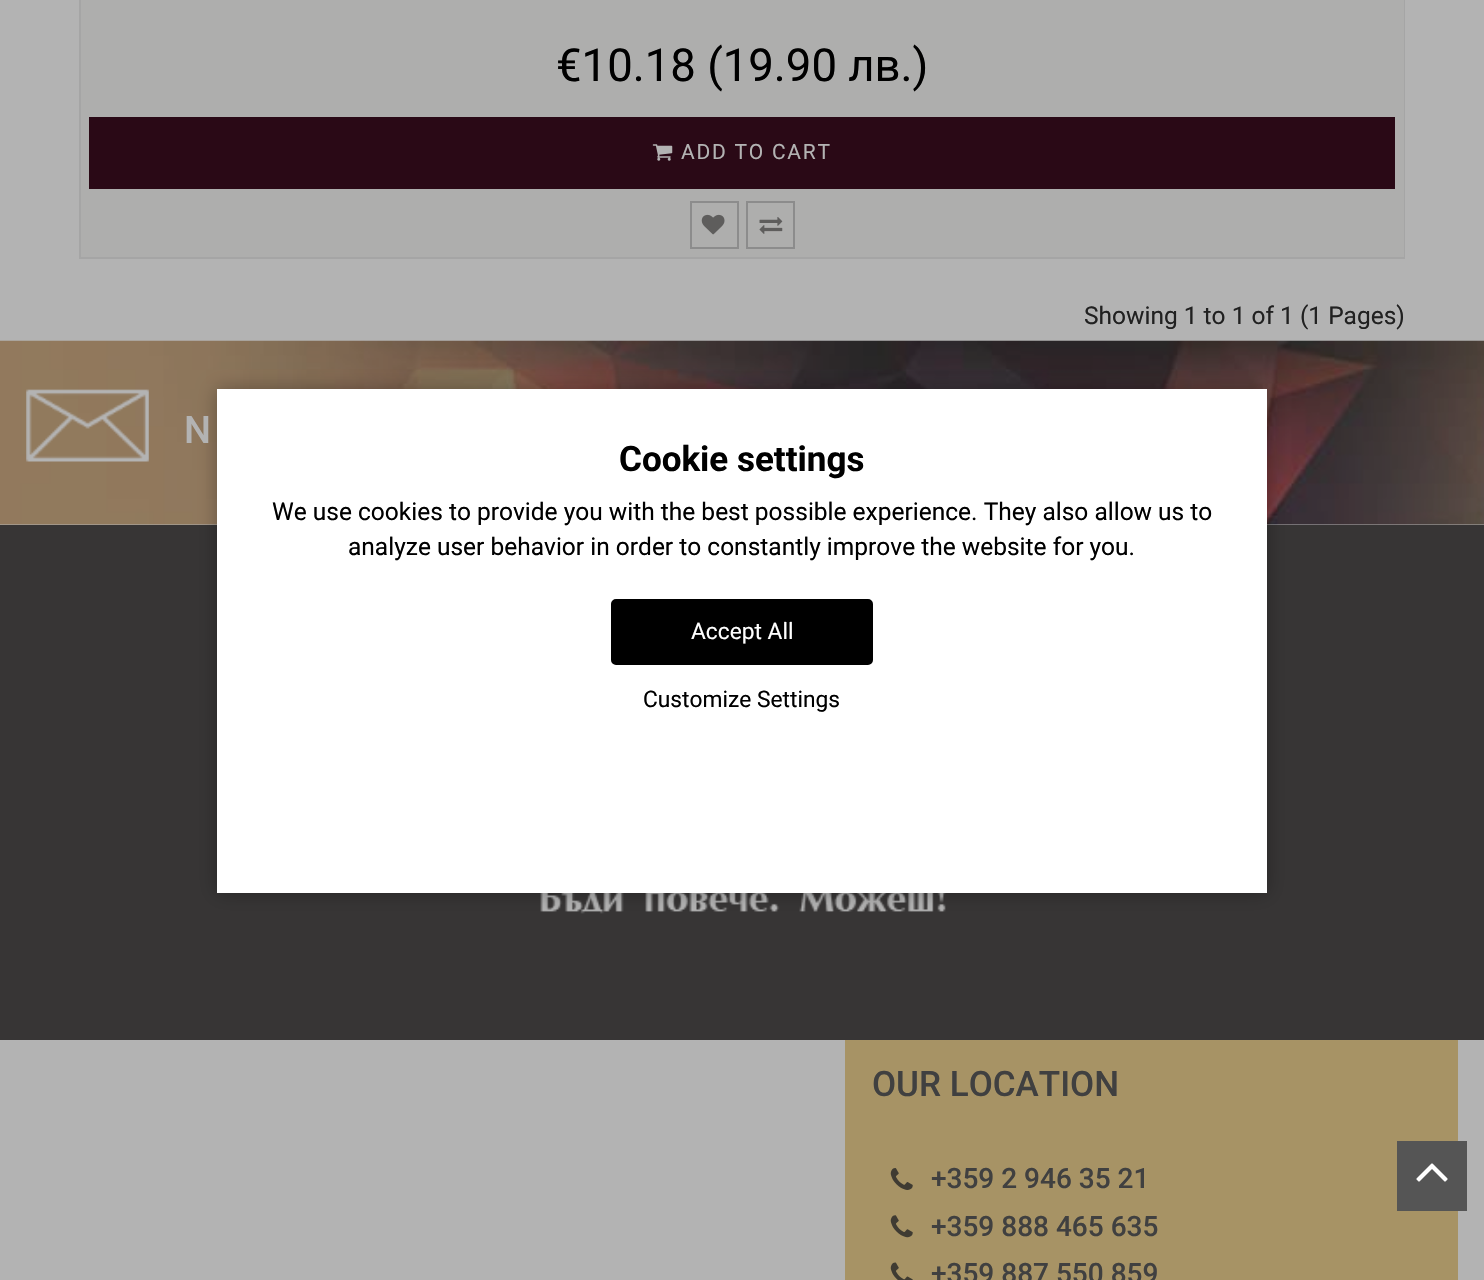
#include "include/core/SkBlurTypes.h"
#include "include/core/SkCanvas.h"
#include "include/core/SkData.h"
#include "include/core/SkFont.h"
#include "include/core/SkFontMgr.h"
#include "include/core/SkImage.h"
#include "include/core/SkMaskFilter.h"
#include "include/core/SkPaint.h"
#include "include/core/SkPathBuilder.h"
#include "include/core/SkTextBlob.h"
#include "include/effects/SkDashPathEffect.h"
#include "include/effects/SkGradientShader.h"
#include "include/utils/SkParsePath.h"

extern sk_sp<SkFontMgr> fontMgr;

void draw(SkCanvas* canvas) {
  SkPaint p;
  p.setAntiAlias(true);
  auto spacedText = [&](const char* s, float x, float y, const SkFont& font, const SkPaint& ink, float letter, float word) {
    std::vector<SkGlyphID> glyphs(font.countText(s, strlen(s), SkTextEncoding::kUTF8));
    std::vector<float> xs(glyphs.size());
    font.textToGlyphs(s, strlen(s), SkTextEncoding::kUTF8, glyphs);
    font.getXPos(glyphs, xs, x);
    float extra = 0;
    for (size_t i = 0; i < glyphs.size(); i++) {
      xs[i] += extra;
      extra += letter + word * (glyphs[i] == font.unicharToGlyph(' '));
    }
    canvas->drawTextBlob(SkTextBlob::MakeFromPosHGlyphs(glyphs, xs, y, font), 0, 0, ink);
  };
  canvas->clear(SkColorSetRGB(179, 179, 179));
  p.setStyle(SkPaint::kStroke_Style);
  p.setStrokeWidth(2);
  p.setColor(SkColorSetRGB(165, 165, 165));
  canvas->drawRect(SkRect::MakeLTRB(80, -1, 1404, 258), p);
  p.setStyle(SkPaint::kFill_Style);
  p.setColor(SkColorSetRGB(174, 174, 173));
  canvas->drawRect(SkRect::MakeLTRB(81, 0, 1404, 257), p);
  p.setColor(SkColorSetRGB(42, 9, 22));
  canvas->drawRect(SkRect::MakeLTRB(89, 117, 1395, 189), p);
  canvas->drawImageRect(SkImages::DeferredFromEncodedData(SkData::MakeFromFileName("images/1.png")), SkRect::MakeLTRB(652, 144, 673, 161), SkSamplingOptions());
  p.setStyle(SkPaint::kStroke_Style);
  p.setColor(SkColorSetRGB(140, 140, 140));
  canvas->drawRect(SkRect::MakeLTRB(691, 202, 738, 248), p);
  canvas->drawImageRect(SkImages::DeferredFromEncodedData(SkData::MakeFromFileName("images/2.png")), SkRect::MakeLTRB(701, 214, 725, 235), SkSamplingOptions());
  canvas->drawRect(SkRect::MakeLTRB(747, 202, 794, 248), p);
  canvas->drawImageRect(SkImages::DeferredFromEncodedData(SkData::MakeFromFileName("images/3.png")), SkRect::MakeLTRB(759, 217, 783, 234), SkSamplingOptions());
  canvas->drawImageRect(SkImages::DeferredFromEncodedData(SkData::MakeFromFileName("images/4.png")), SkRect::MakeLTRB(0, 340, 1484, 525), SkSamplingOptions());
  canvas->drawImageRect(SkImages::DeferredFromEncodedData(SkData::MakeFromFileName("images/5.png")), SkRect::MakeLTRB(26, 389, 149, 462), SkSamplingOptions());
  p.setStyle(SkPaint::kFill_Style);
  p.setColor(SkColorSetRGB(55, 53, 53));
  canvas->drawRect(SkRect::MakeLTRB(0, 525, 1484, 1040), p);
  canvas->drawImageRect(SkImages::DeferredFromEncodedData(SkData::MakeFromFileName("images/6.png")), SkRect::MakeLTRB(540, 893, 946, 914), SkSamplingOptions());
  p.setColor(SkColorSetARGB(77, 0, 0, 0));
  p.setMaskFilter(SkMaskFilter::MakeBlur(kNormal_SkBlurStyle, 9));
  canvas->drawRect(SkRect::MakeLTRB(217, 389, 1267, 893), p);
  p.setMaskFilter(nullptr);
  p.setColor(SK_ColorWHITE);
  canvas->drawRect(SkRect::MakeLTRB(217, 389, 1267, 893), p);
  p.setColor(SK_ColorBLACK);
  canvas->drawRoundRect(SkRect::MakeLTRB(612, 600, 872, 664), 4, 4, p);
  p.setStyle(SkPaint::kStroke_Style);
  canvas->drawRoundRect(SkRect::MakeLTRB(612, 600, 872, 664), 4, 4, p);
  p.setStyle(SkPaint::kFill_Style);
  p.setColor(SkColorSetRGB(167, 147, 101));
  canvas->drawRect(SkRect::MakeLTRB(845, 1040, 1458, 1280), p);
  canvas->drawImageRect(SkImages::DeferredFromEncodedData(SkData::MakeFromFileName("images/7.png")), SkRect::MakeLTRB(890, 1168, 913, 1190), SkSamplingOptions());
  canvas->drawImageRect(SkImages::DeferredFromEncodedData(SkData::MakeFromFileName("images/8.png")), SkRect::MakeLTRB(890, 1215, 913, 1238), SkSamplingOptions());
  canvas->drawImageRect(SkImages::DeferredFromEncodedData(SkData::MakeFromFileName("images/9.png")), SkRect::MakeLTRB(890, 1262, 913, 1280), SkSamplingOptions());
  p.setColor(SkColorSetRGB(85, 85, 85));
  canvas->drawRect(SkRect::MakeLTRB(1397, 1141, 1467, 1211), p);
  canvas->drawImageRect(SkImages::DeferredFromEncodedData(SkData::MakeFromFileName("images/10.png")), SkRect::MakeLTRB(1416, 1163, 1448, 1182), SkSamplingOptions());
  SkFont font1(fontMgr->matchFamilyStyle("Roboto", SkFontStyle::Normal()), 45.5f);
  font1.setSubpixel(true);
  p.setColor(SK_ColorBLACK);
  canvas->drawString("€10.18 (19.90 лв.)", 556, 81, font1, p);
  SkFont font2(fontMgr->matchFamilyStyle("Roboto", SkFontStyle::Normal()), 21);
  font2.setSubpixel(true);
  p.setColor(SkColorSetRGB(179, 179, 179));
  spacedText("ADD TO CART", 681, 159, font2, p, 1.75f, 0);
  SkFont font3(fontMgr->matchFamilyStyle("Roboto", SkFontStyle::Normal()), 24.5f);
  font3.setSubpixel(true);
  p.setColor(SkColorSetRGB(33, 33, 33));
  canvas->drawString("Showing 1 to 1 of 1 (1 Pages)", 1084, 324, font3, p);
  SkFont font4(fontMgr->matchFamilyStyle("Roboto", SkFontStyle(500, SkFontStyle::kNormal_Width, SkFontStyle::kUpright_Slant)), 38);
  font4.setSubpixel(true);
  p.setColor(SkColorSetRGB(179, 179, 179));
  canvas->drawString("N", 184, 443, font4, p);
  SkFont font5(fontMgr->matchFamilyStyle("Roboto", SkFontStyle::Bold()), 35);
  font5.setSubpixel(true);
  p.setColor(SK_ColorBLACK);
  canvas->drawString("Cookie settings", 619, 471, font5, p);
  canvas->drawString("We use cookies to provide you with the best possible experience. They also allow us to", 272, 520, font3, p);
  canvas->drawString("analyze user behavior in order to constantly improve the website for you.", 348, 555, font3, p);
  SkFont font6(fontMgr->matchFamilyStyle("Roboto", SkFontStyle::Normal()), 22.75f);
  font6.setSubpixel(true);
  p.setColor(SK_ColorWHITE);
  canvas->drawString("Accept All", 691, 639, font6, p);
  p.setColor(SK_ColorBLACK);
  canvas->drawString("Customize Settings", 643, 707, font6, p);
  SkFont font7(fontMgr->matchFamilyStyle("Roboto", SkFontStyle(500, SkFontStyle::kNormal_Width, SkFontStyle::kUpright_Slant)), 35);
  font7.setSubpixel(true);
  p.setColor(SkColorSetRGB(64, 64, 64));
  canvas->drawString("OUR LOCATION", 872, 1096, font7, p);
  SkFont font8(fontMgr->matchFamilyStyle("Roboto", SkFontStyle(500, SkFontStyle::kNormal_Width, SkFontStyle::kUpright_Slant)), 28);
  font8.setSubpixel(true);
  canvas->drawString("+359 2 946 35 21", 931, 1188, font8, p);
  canvas->drawString("+359 888 465 635", 931, 1236, font8, p);
  canvas->drawString("+359 887 550 859", 931, 1283, font8, p);
}
